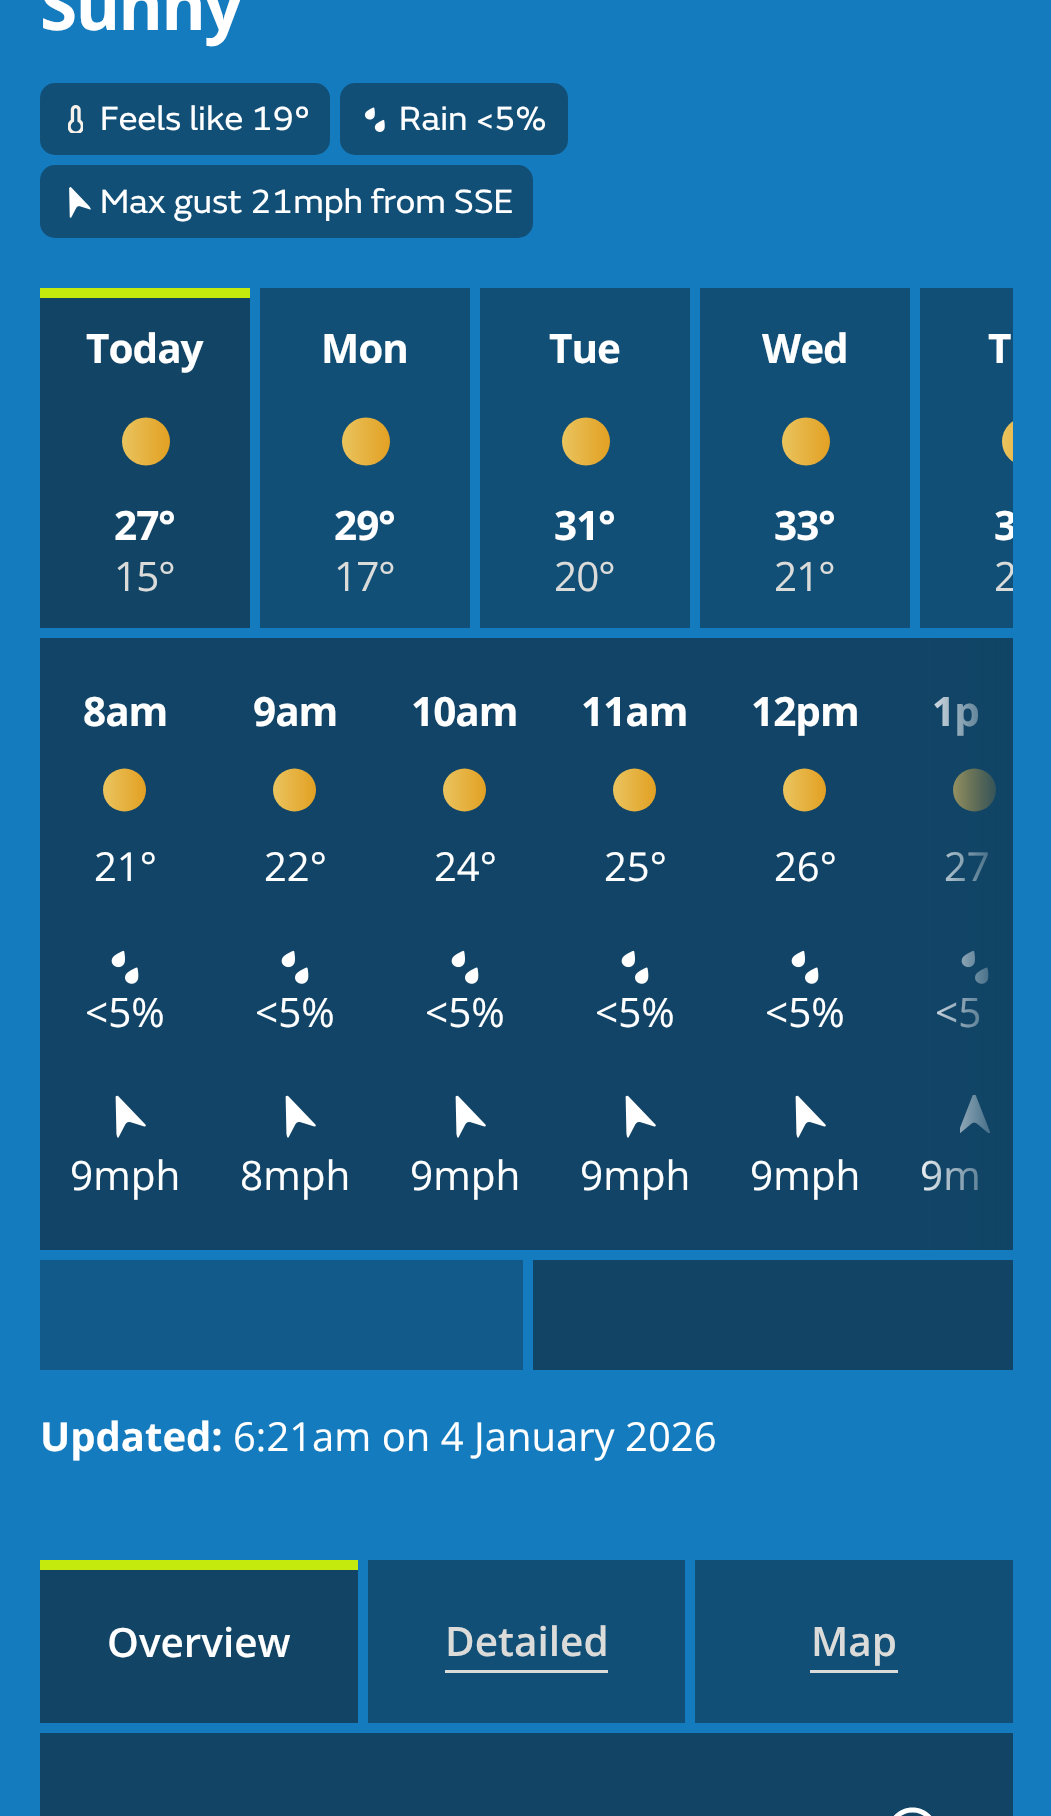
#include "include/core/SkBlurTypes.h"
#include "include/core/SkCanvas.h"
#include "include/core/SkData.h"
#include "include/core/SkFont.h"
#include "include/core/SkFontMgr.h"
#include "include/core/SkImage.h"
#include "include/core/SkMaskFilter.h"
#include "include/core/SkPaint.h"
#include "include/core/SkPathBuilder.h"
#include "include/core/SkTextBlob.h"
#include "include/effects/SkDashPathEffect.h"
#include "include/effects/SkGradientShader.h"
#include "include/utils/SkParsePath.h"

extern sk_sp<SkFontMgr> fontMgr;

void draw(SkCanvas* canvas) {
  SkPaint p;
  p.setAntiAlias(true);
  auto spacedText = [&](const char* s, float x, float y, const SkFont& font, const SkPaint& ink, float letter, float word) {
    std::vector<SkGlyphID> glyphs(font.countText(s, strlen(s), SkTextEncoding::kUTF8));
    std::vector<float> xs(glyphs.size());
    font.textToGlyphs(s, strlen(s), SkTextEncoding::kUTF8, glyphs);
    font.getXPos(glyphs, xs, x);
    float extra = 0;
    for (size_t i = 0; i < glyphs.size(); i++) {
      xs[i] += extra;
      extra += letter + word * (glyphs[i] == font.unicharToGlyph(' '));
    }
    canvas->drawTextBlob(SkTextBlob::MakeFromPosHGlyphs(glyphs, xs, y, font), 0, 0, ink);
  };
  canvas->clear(SkColorSetRGB(20, 123, 190));
  p.setColor(SkColorSetRGB(17, 79, 119));
  canvas->drawRoundRect(SkRect::MakeLTRB(40, 83, 330, 155), 15, 15, p);
  canvas->drawImageRect(SkImages::DeferredFromEncodedData(SkData::MakeFromFileName("images/1.png")), SkRect::MakeLTRB(68, 105, 83, 133), SkSamplingOptions());
  canvas->drawRoundRect(SkRect::MakeLTRB(340, 83, 568, 155), 15, 15, p);
  canvas->drawImageRect(SkImages::DeferredFromEncodedData(SkData::MakeFromFileName("images/2.png")), SkRect::MakeLTRB(365, 107, 385, 132), SkSamplingOptions());
  canvas->drawRoundRect(SkRect::MakeLTRB(40, 165, 533, 238), 15, 15, p);
  canvas->drawImageRect(SkImages::DeferredFromEncodedData(SkData::MakeFromFileName("images/3.png")), SkRect::MakeLTRB(69, 187, 91, 218), SkSamplingOptions());
  p.setColor(SkColorSetRGB(17, 68, 101));
  canvas->drawRect(SkRect::MakeLTRB(40, 298, 250, 628), p);
  p.setColor(SkColorSetRGB(196, 233, 12));
  canvas->drawRect(SkRect::MakeLTRB(40, 288, 250, 298), p);
  {
    const SkColor colors[] = {SkColorSetRGB(234, 196, 95), SkColorSetRGB(226, 160, 34)};
    const float stops[] = {0, 1};
    const SkPoint ends[] = {{122, 441}, {170, 441}};
    p.setShader(SkGradientShader::MakeLinear(ends, colors, stops, 2, SkTileMode::kClamp));
    p.setAlpha(255);
  }
  canvas->drawCircle(146, 441.5f, 24, p);
  p.setShader(nullptr);
  p.setColor(SkColorSetRGB(17, 79, 119));
  canvas->drawRect(SkRect::MakeLTRB(260, 288, 470, 628), p);
  {
    const SkColor colors[] = {SkColorSetRGB(234, 196, 95), SkColorSetRGB(226, 160, 34)};
    const float stops[] = {0, 1};
    const SkPoint ends[] = {{342, 441}, {390, 441}};
    p.setShader(SkGradientShader::MakeLinear(ends, colors, stops, 2, SkTileMode::kClamp));
    p.setAlpha(255);
  }
  canvas->drawCircle(366, 441.5f, 24, p);
  p.setShader(nullptr);
  p.setColor(SkColorSetRGB(17, 79, 119));
  canvas->drawRect(SkRect::MakeLTRB(480, 288, 690, 628), p);
  {
    const SkColor colors[] = {SkColorSetRGB(234, 196, 95), SkColorSetRGB(226, 160, 34)};
    const float stops[] = {0, 1};
    const SkPoint ends[] = {{562, 441}, {610, 441}};
    p.setShader(SkGradientShader::MakeLinear(ends, colors, stops, 2, SkTileMode::kClamp));
    p.setAlpha(255);
  }
  canvas->drawCircle(586, 441.5f, 24, p);
  p.setShader(nullptr);
  p.setColor(SkColorSetRGB(17, 79, 119));
  canvas->drawRect(SkRect::MakeLTRB(700, 288, 910, 628), p);
  {
    const SkColor colors[] = {SkColorSetRGB(234, 196, 95), SkColorSetRGB(226, 160, 34)};
    const float stops[] = {0, 1};
    const SkPoint ends[] = {{782, 441}, {830, 441}};
    p.setShader(SkGradientShader::MakeLinear(ends, colors, stops, 2, SkTileMode::kClamp));
    p.setAlpha(255);
  }
  canvas->drawCircle(806, 441.5f, 24, p);
  p.setShader(nullptr);
  p.setColor(SkColorSetRGB(17, 79, 119));
  canvas->drawRect(SkRect::MakeLTRB(920, 288, 1013, 628), p);
  canvas->save();
  canvas->clipRect(SkRect::MakeLTRB(968, 383, 1013, 500));
  {
    const SkColor colors[] = {SkColorSetRGB(234, 196, 95), SkColorSetRGB(226, 160, 34)};
    const float stops[] = {0, 1};
    const SkPoint ends[] = {{1002, 441}, {1050, 441}};
    p.setShader(SkGradientShader::MakeLinear(ends, colors, stops, 2, SkTileMode::kClamp));
    p.setAlpha(255);
  }
  canvas->drawCircle(1026, 441.5f, 24, p);
  canvas->restore();
  p.setShader(nullptr);
  p.setColor(SkColorSetRGB(17, 68, 102));
  canvas->drawRect(SkRect::MakeLTRB(40, 638, 1012, 1250), p);
  {
    const SkColor colors[] = {SkColorSetRGB(234, 196, 95), SkColorSetRGB(226, 160, 34)};
    const float stops[] = {0, 1};
    const SkPoint ends[] = {{103, 790}, {146, 790}};
    p.setShader(SkGradientShader::MakeLinear(ends, colors, stops, 2, SkTileMode::kClamp));
    p.setAlpha(255);
  }
  canvas->drawCircle(124.5f, 790, 21.5f, p);
  {
    const SkColor colors[] = {SkColorSetRGB(234, 196, 95), SkColorSetRGB(226, 160, 34)};
    const float stops[] = {0, 1};
    const SkPoint ends[] = {{273, 790}, {316, 790}};
    p.setShader(SkGradientShader::MakeLinear(ends, colors, stops, 2, SkTileMode::kClamp));
    p.setAlpha(255);
  }
  canvas->drawCircle(294.5f, 790, 21.5f, p);
  {
    const SkColor colors[] = {SkColorSetRGB(234, 196, 95), SkColorSetRGB(226, 160, 34)};
    const float stops[] = {0, 1};
    const SkPoint ends[] = {{443, 790}, {486, 790}};
    p.setShader(SkGradientShader::MakeLinear(ends, colors, stops, 2, SkTileMode::kClamp));
    p.setAlpha(255);
  }
  canvas->drawCircle(464.5f, 790, 21.5f, p);
  {
    const SkColor colors[] = {SkColorSetRGB(234, 196, 95), SkColorSetRGB(226, 160, 34)};
    const float stops[] = {0, 1};
    const SkPoint ends[] = {{613, 790}, {656, 790}};
    p.setShader(SkGradientShader::MakeLinear(ends, colors, stops, 2, SkTileMode::kClamp));
    p.setAlpha(255);
  }
  canvas->drawCircle(634.5f, 790, 21.5f, p);
  {
    const SkColor colors[] = {SkColorSetRGB(234, 196, 95), SkColorSetRGB(226, 160, 34)};
    const float stops[] = {0, 1};
    const SkPoint ends[] = {{783, 790}, {826, 790}};
    p.setShader(SkGradientShader::MakeLinear(ends, colors, stops, 2, SkTileMode::kClamp));
    p.setAlpha(255);
  }
  canvas->drawCircle(804.5f, 790, 21.5f, p);
  {
    const SkColor colors[] = {SkColorSetRGB(234, 196, 95), SkColorSetRGB(226, 160, 34)};
    const float stops[] = {0, 1};
    const SkPoint ends[] = {{953, 790}, {996, 790}};
    p.setShader(SkGradientShader::MakeLinear(ends, colors, stops, 2, SkTileMode::kClamp));
    p.setAlpha(255);
  }
  canvas->drawCircle(974.5f, 790, 21.5f, p);
  canvas->drawImageRect(SkImages::DeferredFromEncodedData(SkData::MakeFromFileName("images/4.png")), SkRect::MakeLTRB(111, 950, 139, 984), SkSamplingOptions());
  canvas->drawImageRect(SkImages::DeferredFromEncodedData(SkData::MakeFromFileName("images/4.png")), SkRect::MakeLTRB(281, 950, 309, 984), SkSamplingOptions());
  canvas->drawImageRect(SkImages::DeferredFromEncodedData(SkData::MakeFromFileName("images/4.png")), SkRect::MakeLTRB(451, 950, 479, 984), SkSamplingOptions());
  canvas->drawImageRect(SkImages::DeferredFromEncodedData(SkData::MakeFromFileName("images/4.png")), SkRect::MakeLTRB(621, 950, 649, 984), SkSamplingOptions());
  canvas->drawImageRect(SkImages::DeferredFromEncodedData(SkData::MakeFromFileName("images/4.png")), SkRect::MakeLTRB(791, 950, 819, 984), SkSamplingOptions());
  canvas->drawImageRect(SkImages::DeferredFromEncodedData(SkData::MakeFromFileName("images/4.png")), SkRect::MakeLTRB(961, 950, 989, 984), SkSamplingOptions());
  canvas->drawImageRect(SkImages::DeferredFromEncodedData(SkData::MakeFromFileName("images/5.png")), SkRect::MakeLTRB(115, 1095, 146, 1138), SkSamplingOptions());
  canvas->drawImageRect(SkImages::DeferredFromEncodedData(SkData::MakeFromFileName("images/5.png")), SkRect::MakeLTRB(285, 1095, 316, 1138), SkSamplingOptions());
  canvas->drawImageRect(SkImages::DeferredFromEncodedData(SkData::MakeFromFileName("images/5.png")), SkRect::MakeLTRB(455, 1095, 486, 1138), SkSamplingOptions());
  canvas->drawImageRect(SkImages::DeferredFromEncodedData(SkData::MakeFromFileName("images/5.png")), SkRect::MakeLTRB(625, 1095, 656, 1138), SkSamplingOptions());
  canvas->drawImageRect(SkImages::DeferredFromEncodedData(SkData::MakeFromFileName("images/5.png")), SkRect::MakeLTRB(795, 1095, 826, 1138), SkSamplingOptions());
  canvas->drawImageRect(SkImages::DeferredFromEncodedData(SkData::MakeFromFileName("images/6.png")), SkRect::MakeLTRB(960, 1095, 990, 1134), SkSamplingOptions());
  p.setShader(nullptr);
  p.setColor(SkColorSetRGB(18, 90, 137));
  canvas->drawRect(SkRect::MakeLTRB(40, 1260, 523, 1370), p);
  p.setColor(SkColorSetRGB(17, 68, 101));
  canvas->drawRect(SkRect::MakeLTRB(533, 1260, 1013, 1370), p);
  canvas->drawRect(SkRect::MakeLTRB(40, 1570, 358, 1723), p);
  p.setColor(SkColorSetRGB(196, 233, 12));
  canvas->drawRect(SkRect::MakeLTRB(40, 1560, 358, 1570), p);
  p.setColor(SkColorSetRGB(17, 79, 119));
  canvas->drawRect(SkRect::MakeLTRB(368, 1560, 685, 1723), p);
  p.setColor(SkColorSetRGB(219, 219, 217));
  canvas->drawRect(SkRect::MakeLTRB(445, 1670, 608, 1673), p);
  p.setColor(SkColorSetRGB(17, 79, 119));
  canvas->drawRect(SkRect::MakeLTRB(695, 1560, 1013, 1723), p);
  p.setColor(SkColorSetRGB(219, 219, 217));
  canvas->drawRect(SkRect::MakeLTRB(810, 1670, 898, 1673), p);
  p.setColor(SkColorSetRGB(17, 68, 101));
  canvas->drawRect(SkRect::MakeLTRB(40, 1733, 1013, 1816), p);
  canvas->drawImageRect(SkImages::DeferredFromEncodedData(SkData::MakeFromFileName("images/7.png")), SkRect::MakeLTRB(893, 1807, 932, 1816), SkSamplingOptions());
  SkFont font1(fontMgr->matchFamilyStyle("Open Sans", SkFontStyle::Bold()), 67.5f);
  font1.setSubpixel(true);
  p.setColor(SK_ColorWHITE);
  spacedText("Sunny", 40, 30, font1, p, -1.5f, 0);
  SkFont font2(fontMgr->matchFamilyStyle("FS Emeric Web", SkFontStyle::Normal()), 35);
  font2.setSubpixel(true);
  canvas->drawString("Feels like 19°", 100, 130, font2, p);
  canvas->drawString("Rain <5%", 399, 130, font2, p);
  canvas->drawString("Max gust 21mph from SSE", 100, 213, font2, p);
  SkFont font3(fontMgr->matchFamilyStyle("Open Sans", SkFontStyle::Bold()), 40.5f);
  font3.setSubpixel(true);
  spacedText("Today", 86, 363, font3, p, -1, 0);
  spacedText("27°", 114, 540, font3, p, -1, 0);
  SkFont font4(fontMgr->matchFamilyStyle("Open Sans", SkFontStyle::Normal()), 40.5f);
  font4.setSubpixel(true);
  p.setColor(SkColorSetRGB(219, 219, 217));
  spacedText("15°", 114, 591, font4, p, -1, 0);
  p.setColor(SK_ColorWHITE);
  spacedText("Mon", 321, 363, font3, p, -1, 0);
  spacedText("29°", 334, 540, font3, p, -1, 0);
  p.setColor(SkColorSetRGB(219, 219, 217));
  spacedText("17°", 334, 591, font4, p, -1, 0);
  p.setColor(SK_ColorWHITE);
  spacedText("Tue", 549, 363, font3, p, -1, 0);
  spacedText("31°", 554, 540, font3, p, -1, 0);
  p.setColor(SkColorSetRGB(219, 219, 217));
  spacedText("20°", 554, 591, font4, p, -1, 0);
  p.setColor(SK_ColorWHITE);
  spacedText("Wed", 762, 363, font3, p, -1, 0);
  spacedText("33°", 774, 540, font3, p, -1, 0);
  p.setColor(SkColorSetRGB(219, 219, 217));
  spacedText("21°", 774, 591, font4, p, -1, 0);
  p.setColor(SK_ColorWHITE);
  spacedText("T", 988, 363, font3, p, -1, 0);
  canvas->save();
  canvas->clipRect(SkRect::MakeLTRB(40, 278, 1013, 628));
  spacedText("3", 994, 540, font3, p, -1, 0);
  p.setColor(SkColorSetRGB(219, 219, 217));
  spacedText("2", 994, 591, font4, p, -1, 0);
  canvas->restore();
  p.setColor(SK_ColorWHITE);
  spacedText("8am", 83, 726, font3, p, -1, 0);
  spacedText("9am", 253, 726, font3, p, -1, 0);
  spacedText("10am", 411, 726, font3, p, -1, 0);
  spacedText("11am", 581, 726, font3, p, -1, 0);
  spacedText("12pm", 751, 726, font3, p, -1, 0);
  spacedText("1p", 932, 726, font3, p, -1, 0);
  SkFont font5(fontMgr->matchFamilyStyle("Open Sans", SkFontStyle::Normal()), 40);
  font5.setSubpixel(true);
  canvas->drawString("21°", 94, 881, font5, p);
  canvas->drawString("22°", 264, 881, font5, p);
  canvas->drawString("24°", 434, 881, font5, p);
  canvas->drawString("25°", 604, 881, font5, p);
  canvas->drawString("26°", 774, 881, font5, p);
  canvas->drawString("27", 944, 881, font5, p);
  canvas->drawString("<5%", 85, 1027, font4, p);
  canvas->drawString("<5%", 255, 1027, font4, p);
  canvas->drawString("<5%", 425, 1027, font4, p);
  canvas->drawString("<5%", 595, 1027, font4, p);
  canvas->drawString("<5%", 765, 1027, font4, p);
  canvas->drawString("<5", 935, 1027, font4, p);
  canvas->drawString("9mph", 70, 1190, font4, p);
  canvas->drawString("8mph", 240, 1190, font4, p);
  canvas->drawString("9mph", 410, 1190, font4, p);
  canvas->drawString("9mph", 580, 1190, font4, p);
  canvas->drawString("9mph", 750, 1190, font4, p);
  canvas->drawString("9m", 920, 1190, font4, p);
  {
    const SkColor colors[] = {SkColorSetRGB(16, 68, 101), SkColorSetARGB(0, 16, 68, 101)};
    const float stops[] = {0, 1};
    const SkPoint ends[] = {{1013, 944}, {913, 944}};
    p.setShader(SkGradientShader::MakeLinear(ends, colors, stops, 2, SkTileMode::kClamp));
    p.setAlpha(255);
  }
  canvas->drawRect(SkRect::MakeLTRB(922, 638, 1013, 1250), p);
  SkFont font6(fontMgr->matchFamilyStyle("Open Sans", SkFontStyle::Bold()), 40);
  font6.setSubpixel(true);
  p.setShader(nullptr);
  p.setColor(SK_ColorWHITE);
  canvas->drawString("Updated:", 40, 1451, font6, p);
  canvas->drawString("6:21am on 4 January 2026", 233, 1451, font5, p);
  SkFont font7(fontMgr->matchFamilyStyle("Open Sans", SkFontStyle(600, SkFontStyle::kNormal_Width, SkFontStyle::kUpright_Slant)), 40.5f);
  font7.setSubpixel(true);
  canvas->drawString("Overview", 107, 1657, font7, p);
  p.setColor(SkColorSetRGB(219, 219, 217));
  canvas->drawString("Detailed", 445, 1656, font7, p);
  canvas->drawString("Map", 811, 1656, font7, p);
}
